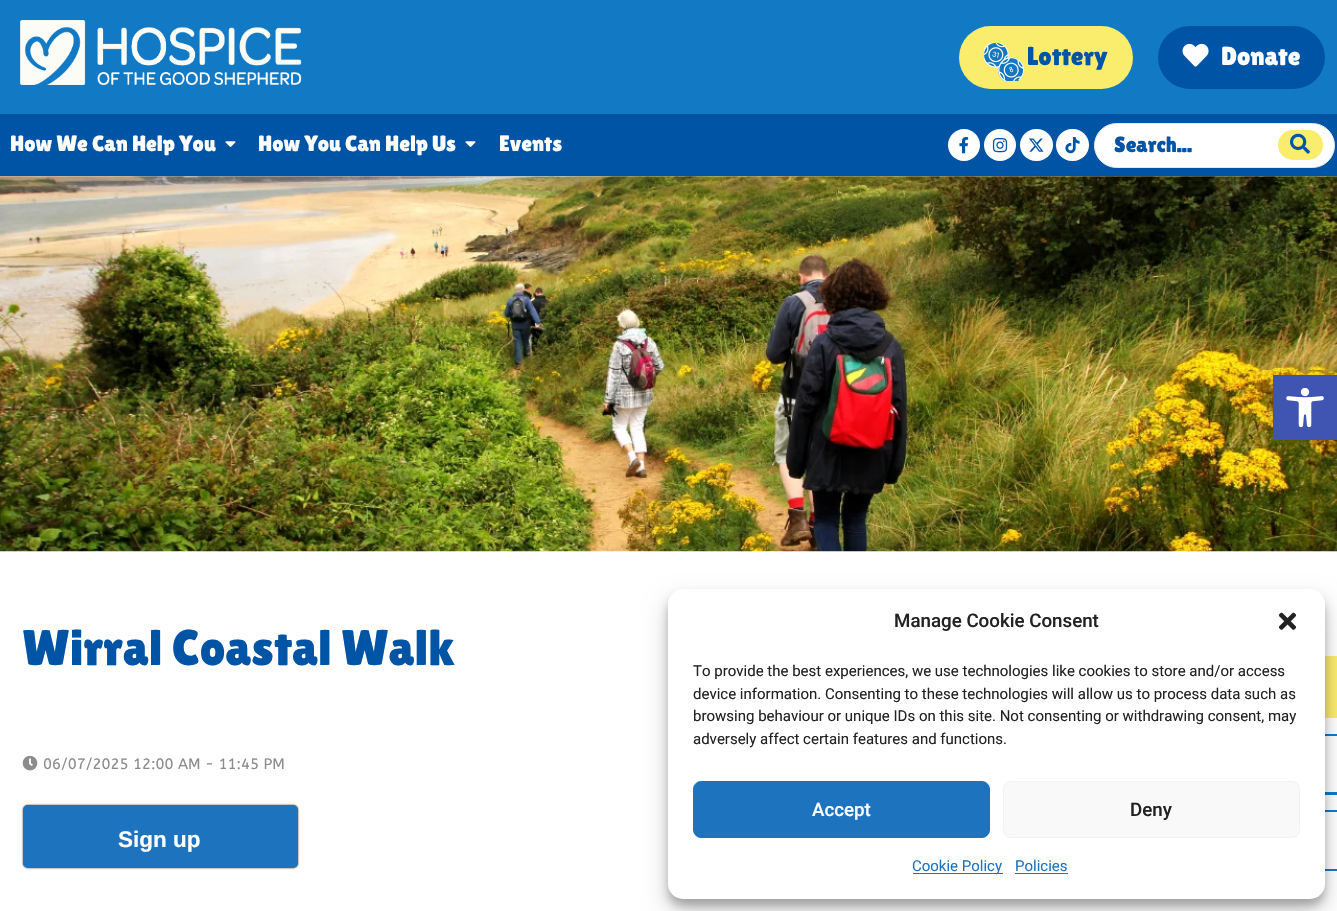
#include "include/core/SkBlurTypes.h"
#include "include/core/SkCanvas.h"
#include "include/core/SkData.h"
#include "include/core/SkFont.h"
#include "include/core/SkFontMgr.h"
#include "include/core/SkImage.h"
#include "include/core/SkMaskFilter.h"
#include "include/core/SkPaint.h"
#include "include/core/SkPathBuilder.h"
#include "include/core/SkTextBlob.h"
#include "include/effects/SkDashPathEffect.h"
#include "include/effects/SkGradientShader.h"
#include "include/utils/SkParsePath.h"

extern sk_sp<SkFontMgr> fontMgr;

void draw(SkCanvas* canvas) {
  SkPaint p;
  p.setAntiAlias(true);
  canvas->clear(SK_ColorWHITE);
  p.setColor(SkColorSetRGB(18, 122, 196));
  canvas->drawRect(SkRect::MakeLTRB(0, 0, 1337, 114), p);
  canvas->drawImageRect(SkImages::DeferredFromEncodedData(SkData::MakeFromFileName("images/1.png")), SkRect::MakeLTRB(20, 20, 302, 85), SkSamplingOptions());
  p.setColor(SkColorSetRGB(250, 236, 108));
  canvas->drawRoundRect(SkRect::MakeLTRB(959, 26, 1133, 89), 31.5f, 31.5f, p);
  canvas->drawImageRect(SkImages::DeferredFromEncodedData(SkData::MakeFromFileName("images/2.png")), SkRect::MakeLTRB(984, 43, 1024, 81), SkSamplingOptions());
  p.setColor(SkColorSetRGB(0, 84, 166));
  canvas->drawRoundRect(SkRect::MakeLTRB(1158, 26, 1325, 89), 31.5f, 31.5f, p);
  canvas->drawImageRect(SkImages::DeferredFromEncodedData(SkData::MakeFromFileName("images/3.png")), SkRect::MakeLTRB(1182, 43, 1209, 67), SkSamplingOptions());
  canvas->drawRect(SkRect::MakeLTRB(0, 114, 1337, 176), p);
  canvas->drawImageRect(SkImages::DeferredFromEncodedData(SkData::MakeFromFileName("images/4.png")), SkRect::MakeLTRB(225, 141, 236, 147), SkSamplingOptions());
  canvas->drawImageRect(SkImages::DeferredFromEncodedData(SkData::MakeFromFileName("images/4.png")), SkRect::MakeLTRB(465, 141, 476, 147), SkSamplingOptions());
  p.setColor(SK_ColorWHITE);
  canvas->drawCircle(964, 145, 16, p);
  canvas->drawImageRect(SkImages::DeferredFromEncodedData(SkData::MakeFromFileName("images/5.png")), SkRect::MakeLTRB(959, 137, 969, 154), SkSamplingOptions());
  canvas->drawCircle(1000, 145, 16, p);
  canvas->drawImageRect(SkImages::DeferredFromEncodedData(SkData::MakeFromFileName("images/6.png")), SkRect::MakeLTRB(992, 138, 1008, 153), SkSamplingOptions());
  canvas->drawRoundRect(SkRect::MakeLTRB(1020, 129, 1053, 161), 16, 16, p);
  canvas->drawImageRect(SkImages::DeferredFromEncodedData(SkData::MakeFromFileName("images/7.png")), SkRect::MakeLTRB(1029, 138, 1044, 152), SkSamplingOptions());
  canvas->drawRoundRect(SkRect::MakeLTRB(1056, 129, 1089, 161), 16, 16, p);
  canvas->drawImageRect(SkImages::DeferredFromEncodedData(SkData::MakeFromFileName("images/8.png")), SkRect::MakeLTRB(1065, 137, 1080, 154), SkSamplingOptions());
  canvas->drawRoundRect(SkRect::MakeLTRB(1094.5f, 123.5f, 1334.5f, 167.5f), 22, 22, p);
  p.setStyle(SkPaint::kStroke_Style);
  p.setStrokeWidth(1);
  p.setColor(SkColorSetRGB(232, 232, 232));
  canvas->drawRoundRect(SkRect::MakeLTRB(1094.5f, 123.5f, 1334.5f, 167.5f), 22, 22, p);
  p.setStyle(SkPaint::kFill_Style);
  p.setColor(SkColorSetRGB(250, 236, 108));
  canvas->drawRoundRect(SkRect::MakeLTRB(1278, 130, 1323, 160), 15, 15, p);
  canvas->drawImageRect(SkImages::DeferredFromEncodedData(SkData::MakeFromFileName("images/9.png")), SkRect::MakeLTRB(1290, 133, 1310, 154), SkSamplingOptions());
  canvas->drawRect(SkRect::MakeLTRB(1325, 659, 1337, 715), p);
  canvas->drawPath(SkPathBuilder(SkPathFillType::kEvenOdd).moveTo(1296, 656).lineTo(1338, 656).lineTo(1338, 718).lineTo(1296, 718).cubicTo(1279, 718, 1265, 704, 1265, 687).cubicTo(1265, 670, 1279, 656, 1296, 656).close().moveTo(1296, 659).lineTo(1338, 659).lineTo(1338, 715).lineTo(1296, 715).cubicTo(1280, 715, 1268, 702, 1268, 687).cubicTo(1268, 671, 1280, 659, 1296, 659).close().detach(), p);
  p.setColor(SkColorSetRGB(18, 122, 196));
  canvas->drawPath(SkPathBuilder(SkPathFillType::kEvenOdd).moveTo(1296, 734).lineTo(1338, 734).lineTo(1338, 795).lineTo(1296, 795).cubicTo(1279, 795, 1265, 781, 1265, 764).cubicTo(1265, 747, 1279, 734, 1296, 734).close().moveTo(1296, 736).lineTo(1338, 736).lineTo(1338, 792).lineTo(1296, 792).cubicTo(1280, 792, 1268, 780, 1268, 764).cubicTo(1268, 749, 1280, 736, 1296, 736).close().detach(), p);
  canvas->drawPath(SkPathBuilder(SkPathFillType::kEvenOdd).moveTo(1296, 810).lineTo(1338, 810).lineTo(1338, 871).lineTo(1296, 871).cubicTo(1279, 871, 1265, 858, 1265, 841).cubicTo(1265, 824, 1279, 810, 1296, 810).close().moveTo(1296, 812).lineTo(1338, 812).lineTo(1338, 869).lineTo(1296, 869).cubicTo(1280, 869, 1268, 856, 1268, 841).cubicTo(1268, 825, 1280, 812, 1296, 812).close().detach(), p);
  canvas->drawImageRect(SkImages::DeferredFromEncodedData(SkData::MakeFromFileName("images/11.png")), SkRect::MakeLTRB(0, 176, 1337, 552), SkSamplingOptions());
  p.setColor(SkColorSetARGB(26, 0, 0, 0));
  p.setMaskFilter(SkMaskFilter::MakeBlur(kNormal_SkBlurStyle, 6));
  canvas->drawRect(SkRect::MakeLTRB(1273, 375, 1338, 440), p);
  p.setMaskFilter(nullptr);
  p.setColor(SkColorSetRGB(64, 84, 178));
  canvas->drawRect(SkRect::MakeLTRB(1273, 375, 1337, 440), p);
  canvas->drawImageRect(SkImages::DeferredFromEncodedData(SkData::MakeFromFileName("images/10.png")), SkRect::MakeLTRB(1286, 388, 1324, 428), SkSamplingOptions());
  canvas->drawImageRect(SkImages::DeferredFromEncodedData(SkData::MakeFromFileName("images/12.png")), SkRect::MakeLTRB(22, 755, 38, 771), SkSamplingOptions());
  p.setColor(SkColorSetRGB(51, 51, 51));
  p.setMaskFilter(SkMaskFilter::MakeBlur(kNormal_SkBlurStyle, 1));
  canvas->drawRoundRect(SkRect::MakeLTRB(23, 805, 298, 868), 5, 5, p);
  p.setMaskFilter(nullptr);
  p.setColor(SkColorSetRGB(30, 115, 190));
  canvas->drawRoundRect(SkRect::MakeLTRB(24.5f, 806.5f, 296.5f, 866.5f), 3.5f, 3.5f, p);
  p.setStyle(SkPaint::kStroke_Style);
  p.setStrokeWidth(3);
  canvas->drawRoundRect(SkRect::MakeLTRB(24.5f, 806.5f, 296.5f, 866.5f), 3.5f, 3.5f, p);
  p.setStyle(SkPaint::kFill_Style);
  p.setColor(SkColorSetARGB(59, 0, 0, 0));
  p.setMaskFilter(SkMaskFilter::MakeBlur(kNormal_SkBlurStyle, 4));
  canvas->drawRoundRect(SkRect::MakeLTRB(668, 596, 1325, 906), 15, 15, p);
  p.setMaskFilter(nullptr);
  p.setColor(SkColorSetARGB(48, 0, 0, 0));
  p.setMaskFilter(SkMaskFilter::MakeBlur(kNormal_SkBlurStyle, 12.5f));
  canvas->drawRoundRect(SkRect::MakeLTRB(668, 601, 1325, 911), 15, 15, p);
  p.setMaskFilter(nullptr);
  p.setColor(SK_ColorWHITE);
  canvas->drawRoundRect(SkRect::MakeLTRB(668, 589, 1325, 899), 15, 15, p);
  canvas->drawImageRect(SkImages::DeferredFromEncodedData(SkData::MakeFromFileName("images/13.png")), SkRect::MakeLTRB(1278, 612, 1297, 630), SkSamplingOptions());
  p.setColor(SkColorSetRGB(30, 115, 190));
  canvas->drawRoundRect(SkRect::MakeLTRB(693.5f, 781.5f, 989.5f, 837.5f), 7.5f, 7.5f, p);
  p.setStyle(SkPaint::kStroke_Style);
  p.setStrokeWidth(1);
  canvas->drawRoundRect(SkRect::MakeLTRB(693.5f, 781.5f, 989.5f, 837.5f), 7.5f, 7.5f, p);
  p.setStyle(SkPaint::kFill_Style);
  p.setColor(SkColorSetRGB(249, 249, 249));
  canvas->drawRoundRect(SkRect::MakeLTRB(1003.5f, 781.5f, 1299.5f, 837.5f), 7.5f, 7.5f, p);
  p.setStyle(SkPaint::kStroke_Style);
  p.setColor(SkColorSetRGB(242, 242, 242));
  canvas->drawRoundRect(SkRect::MakeLTRB(1003.5f, 781.5f, 1299.5f, 837.5f), 7.5f, 7.5f, p);
  p.setStyle(SkPaint::kFill_Style);
  p.setColor(SkColorSetRGB(30, 115, 190));
  canvas->drawRect(SkRect::MakeLTRB(913, 873, 1003, 874), p);
  canvas->drawRect(SkRect::MakeLTRB(1015, 873, 1068, 874), p);
  SkFont font1(fontMgr->matchFamilyStyle("Lilita One", SkFontStyle::Normal()), 26);
  font1.setSubpixel(true);
  p.setColor(SkColorSetRGB(0, 84, 166));
  canvas->drawString("Lottery", 1027, 65, font1, p);
  p.setColor(SK_ColorWHITE);
  canvas->drawString("Donate", 1221, 65, font1, p);
  SkFont font2(fontMgr->matchFamilyStyle("Lilita One", SkFontStyle::Normal()), 22);
  font2.setSubpixel(true);
  canvas->drawString("How We Can Help You", 10, 151, font2, p);
  canvas->drawString("How You Can Help Us", 258, 151, font2, p);
  canvas->drawString("Events", 499, 151, font2, p);
  p.setColor(SkColorSetRGB(0, 84, 166));
  canvas->drawString("Search...", 1114, 152, font2, p);
  SkFont font3(fontMgr->matchFamilyStyle("Lilita One", SkFontStyle::Normal()), 50);
  font3.setSubpixel(true);
  canvas->drawString("Wirral Coastal Walk", 22, 665, font3, p);
  SkFont font4(fontMgr->matchFamilyStyle("ABeeZee", SkFontStyle::Normal()), 15);
  font4.setSubpixel(true);
  p.setColor(SkColorSetRGB(140, 140, 140));
  canvas->drawString("06/07/2025 12:00 AM - 11:45 PM", 43, 769, font4, p);
  SkFont font5(fontMgr->matchFamilyStyle("Liberation Sans", SkFontStyle::Bold()), 22.5f);
  font5.setSubpixel(true);
  p.setColor(SK_ColorWHITE);
  canvas->drawString("Sign up", 118, 847, font5, p);
  SkFont font6(fontMgr->matchFamilyStyle("Roboto", SkFontStyle(500, SkFontStyle::kNormal_Width, SkFontStyle::kUpright_Slant)), 18.75f);
  font6.setSubpixel(true);
  p.setColor(SkColorSetRGB(34, 34, 34));
  canvas->drawString("Manage Cookie Consent", 894, 627, font6, p);
  SkFont font7(fontMgr->matchFamilyStyle("Roboto", SkFontStyle::Normal()), 15);
  font7.setSubpixel(true);
  canvas->drawString("To provide the best experiences, we use technologies like cookies to store and/or access", 693, 676, font7, p);
  canvas->drawString("device information. Consenting to these technologies will allow us to process data such as", 693, 699, font7, p);
  canvas->drawString("browsing behaviour or unique IDs on this site. Not consenting or withdrawing consent, may", 693, 721, font7, p);
  canvas->drawString("adversely affect certain features and functions.", 693, 744, font7, p);
  p.setColor(SK_ColorWHITE);
  canvas->drawString("Accept", 812, 816, font6, p);
  p.setColor(SkColorSetRGB(34, 34, 34));
  canvas->drawString("Deny", 1130, 816, font6, p);
  p.setColor(SkColorSetRGB(30, 115, 190));
  canvas->drawString("Cookie Policy", 912, 871, font7, p);
  canvas->drawString("Policies", 1015, 871, font7, p);
}
